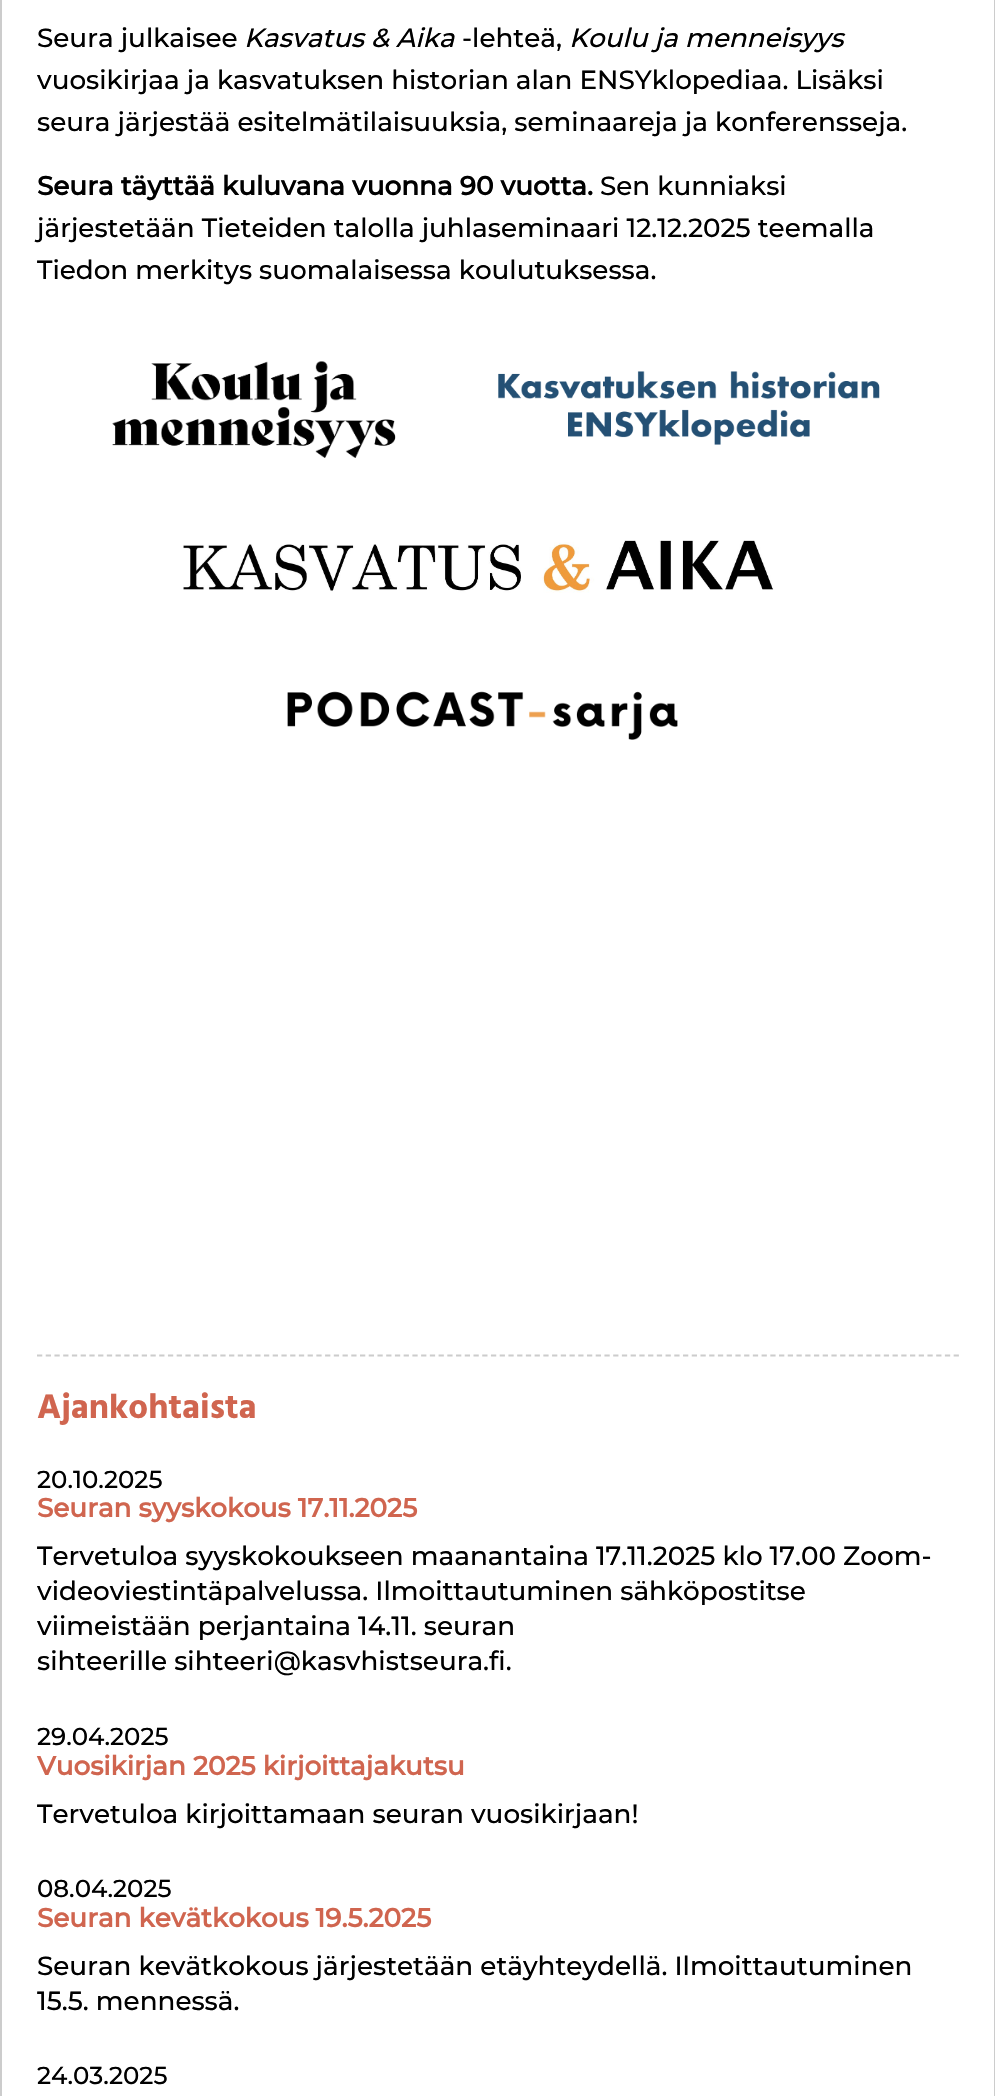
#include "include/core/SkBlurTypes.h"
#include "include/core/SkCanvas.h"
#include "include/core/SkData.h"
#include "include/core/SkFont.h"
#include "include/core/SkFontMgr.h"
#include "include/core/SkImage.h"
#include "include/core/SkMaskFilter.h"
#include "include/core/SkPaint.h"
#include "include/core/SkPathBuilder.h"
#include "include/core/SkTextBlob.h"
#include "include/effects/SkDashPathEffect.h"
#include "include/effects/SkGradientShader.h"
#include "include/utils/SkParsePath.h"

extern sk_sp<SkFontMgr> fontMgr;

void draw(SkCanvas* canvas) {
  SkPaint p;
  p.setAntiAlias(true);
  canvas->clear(SK_ColorWHITE);
  p.setStyle(SkPaint::kStroke_Style);
  p.setStrokeWidth(2);
  p.setColor(SkColorSetRGB(204, 204, 204));
  canvas->drawRect(SkRect::MakeLTRB(1, -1, 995, 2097), p);
  canvas->drawImageRect(SkImages::DeferredFromEncodedData(SkData::MakeFromFileName("images/1.png")), SkRect::MakeLTRB(112, 361, 396, 458), SkSamplingOptions());
  canvas->drawImageRect(SkImages::DeferredFromEncodedData(SkData::MakeFromFileName("images/2.png")), SkRect::MakeLTRB(498, 371, 880, 445), SkSamplingOptions());
  canvas->drawImageRect(SkImages::DeferredFromEncodedData(SkData::MakeFromFileName("images/3.png")), SkRect::MakeLTRB(183, 540, 774, 593), SkSamplingOptions());
  canvas->drawImageRect(SkImages::DeferredFromEncodedData(SkData::MakeFromFileName("images/4.png")), SkRect::MakeLTRB(287, 691, 678, 740), SkSamplingOptions());
  p.setStrokeWidth(1.8f);
  p.setPathEffect(SkDashPathEffect::Make({{5.25f, 3.48f}}, 0));
  canvas->drawPath(SkPathBuilder().moveTo(37, 1355.5f).lineTo(959, 1355.5f).detach(), p);
  p.setPathEffect(nullptr);
  SkFont font1(fontMgr->matchFamilyStyle("Montserrat", SkFontStyle(500, SkFontStyle::kNormal_Width, SkFontStyle::kUpright_Slant)), 26.25f);
  font1.setSubpixel(true);
  p.setStyle(SkPaint::kFill_Style);
  p.setColor(SK_ColorBLACK);
  canvas->drawString("Seura julkaisee", 37, 47, font1, p);
  SkFont font2(fontMgr->matchFamilyStyle("Montserrat", SkFontStyle(500, SkFontStyle::kNormal_Width, SkFontStyle::kItalic_Slant)), 26.25f);
  font2.setSubpixel(true);
  canvas->drawString("Kasvatus & Aika", 244, 47, font2, p);
  canvas->drawString("-lehteä,", 462, 47, font1, p);
  canvas->drawString("Koulu ja menneisyys", 569, 47, font2, p);
  canvas->drawString("vuosikirjaa ja kasvatuksen historian alan ENSYklopediaa. Lisäksi", 37, 89, font1, p);
  canvas->drawString("seura järjestää esitelmätilaisuuksia, seminaareja ja konferensseja.", 37, 131, font1, p);
  SkFont font3(fontMgr->matchFamilyStyle("Montserrat", SkFontStyle::Bold()), 26.25f);
  font3.setSubpixel(true);
  canvas->drawString("Seura täyttää kuluvana vuonna 90 vuotta.", 37, 195, font3, p);
  canvas->drawString("Sen kunniaksi", 600, 195, font1, p);
  canvas->drawString("järjestetään Tieteiden talolla juhlaseminaari 12.12.2025 teemalla", 37, 237, font1, p);
  canvas->drawString("Tiedon merkitys suomalaisessa koulutuksessa.", 37, 279, font1, p);
  SkFont font4(fontMgr->matchFamilyStyle("Hind", SkFontStyle::Bold()), 35);
  font4.setSubpixel(true);
  p.setColor(SkColorSetRGB(208, 101, 79));
  canvas->drawString("Ajankohtaista", 37, 1418, font4, p);
  SkFont font5(fontMgr->matchFamilyStyle("Montserrat", SkFontStyle(500, SkFontStyle::kNormal_Width, SkFontStyle::kUpright_Slant)), 24.5f);
  font5.setSubpixel(true);
  p.setColor(SK_ColorBLACK);
  canvas->drawString("20.10.2025", 37, 1488, font5, p);
  p.setColor(SkColorSetRGB(208, 101, 79));
  canvas->drawString("Seuran syyskokous 17.11.2025", 37, 1517, font3, p);
  p.setColor(SK_ColorBLACK);
  canvas->drawString("Tervetuloa syyskokoukseen maanantaina 17.11.2025 klo 17.00 Zoom-", 37, 1565, font1, p);
  canvas->drawString("videoviestintäpalvelussa. Ilmoittautuminen sähköpostitse", 37, 1600, font1, p);
  canvas->drawString("viimeistään perjantaina 14.11. seuran", 37, 1635, font1, p);
  canvas->drawString("sihteerille sihteeri@kasvhistseura.fi.", 37, 1670, font1, p);
  canvas->drawString("29.04.2025", 37, 1745, font5, p);
  p.setColor(SkColorSetRGB(208, 101, 79));
  canvas->drawString("Vuosikirjan 2025 kirjoittajakutsu", 37, 1775, font3, p);
  p.setColor(SK_ColorBLACK);
  canvas->drawString("Tervetuloa kirjoittamaan seuran vuosikirjaan!", 37, 1823, font1, p);
  canvas->drawString("08.04.2025", 37, 1897, font5, p);
  p.setColor(SkColorSetRGB(208, 101, 79));
  canvas->drawString("Seuran kevätkokous 19.5.2025", 37, 1927, font3, p);
  p.setColor(SK_ColorBLACK);
  canvas->drawString("Seuran kevätkokous järjestetään etäyhteydellä. Ilmoittautuminen", 37, 1975, font1, p);
  canvas->drawString("15.5. mennessä.", 37, 2010, font1, p);
  canvas->drawString("24.03.2025", 37, 2084, font5, p);
}
